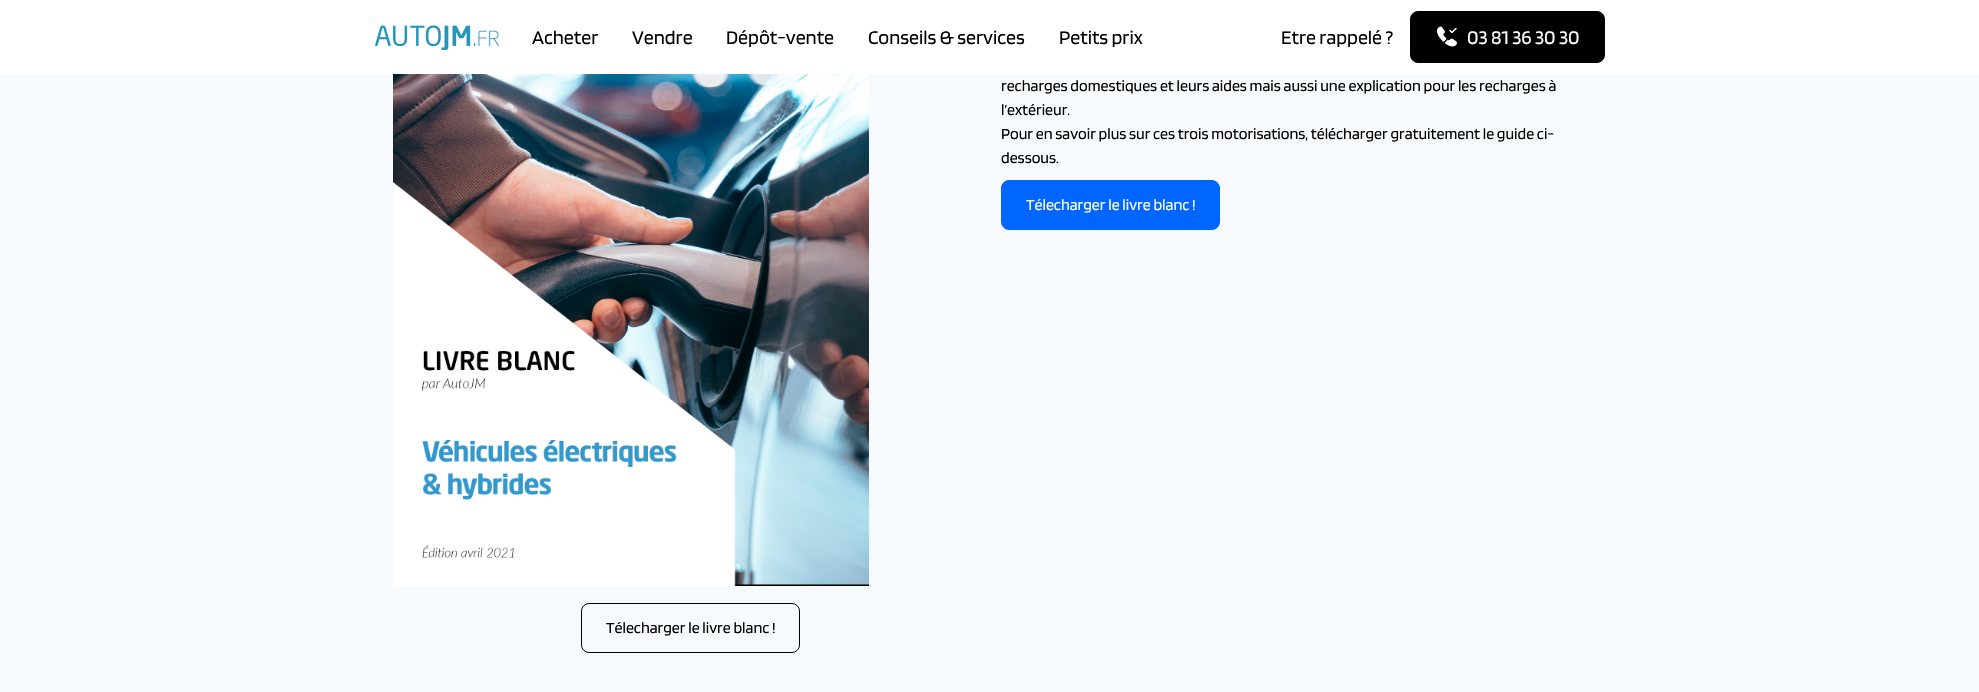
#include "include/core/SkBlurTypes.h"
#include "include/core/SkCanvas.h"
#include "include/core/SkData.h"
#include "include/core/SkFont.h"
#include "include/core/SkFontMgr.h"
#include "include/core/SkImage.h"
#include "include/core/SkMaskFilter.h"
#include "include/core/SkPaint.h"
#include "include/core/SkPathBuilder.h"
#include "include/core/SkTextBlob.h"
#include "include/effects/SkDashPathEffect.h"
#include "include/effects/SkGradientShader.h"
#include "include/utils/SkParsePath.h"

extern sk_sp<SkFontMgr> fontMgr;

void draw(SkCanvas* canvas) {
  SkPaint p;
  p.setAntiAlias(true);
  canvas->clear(SkColorSetRGB(247, 250, 252));
  p.setColor(SK_ColorWHITE);
  canvas->drawRect(SkRect::MakeLTRB(0, 0, 1979, 74), p);
  canvas->drawImageRect(SkImages::DeferredFromEncodedData(SkData::MakeFromFileName("images/1.png")), SkRect::MakeLTRB(375, 25, 499, 50), SkSamplingOptions());
  p.setColor(SK_ColorBLACK);
  canvas->drawRoundRect(SkRect::MakeLTRB(1410.5f, 11.5f, 1604.5f, 62.5f), 7.5f, 7.5f, p);
  p.setStyle(SkPaint::kStroke_Style);
  p.setStrokeWidth(1);
  canvas->drawRoundRect(SkRect::MakeLTRB(1410.5f, 11.5f, 1604.5f, 62.5f), 7.5f, 7.5f, p);
  canvas->drawImageRect(SkImages::DeferredFromEncodedData(SkData::MakeFromFileName("images/2.png")), SkRect::MakeLTRB(1437, 26, 1457, 47), SkSamplingOptions());
  p.setStyle(SkPaint::kFill_Style);
  p.setColor(SkColorSetRGB(0, 102, 255));
  canvas->drawRoundRect(SkRect::MakeLTRB(1001.5f, 180.5f, 1219.5f, 229.5f), 7.5f, 7.5f, p);
  p.setStyle(SkPaint::kStroke_Style);
  canvas->drawRoundRect(SkRect::MakeLTRB(1001.5f, 180.5f, 1219.5f, 229.5f), 7.5f, 7.5f, p);
  canvas->drawImageRect(SkImages::DeferredFromEncodedData(SkData::MakeFromFileName("images/3.png")), SkRect::MakeLTRB(393, 74, 869, 586), SkSamplingOptions());
  p.setColor(SK_ColorBLACK);
  canvas->drawRoundRect(SkRect::MakeLTRB(581.5f, 603.5f, 799.5f, 652.5f), 7.5f, 7.5f, p);
  SkFont font1(fontMgr->matchFamilyStyle("Blinker", SkFontStyle::Normal()), 20);
  font1.setSubpixel(true);
  p.setStyle(SkPaint::kFill_Style);
  canvas->drawString("Acheter", 532, 44, font1, p);
  canvas->drawString("Vendre", 632, 44, font1, p);
  canvas->drawString("Dépôt-vente", 726, 44, font1, p);
  canvas->drawString("Conseils & services", 868, 44, font1, p);
  canvas->drawString("Petits prix", 1059, 44, font1, p);
  canvas->drawString("Etre rappelé ?", 1281, 44, font1, p);
  p.setColor(SK_ColorWHITE);
  canvas->drawString("03 81 36 30 30", 1467, 44, font1, p);
  SkFont font2(fontMgr->matchFamilyStyle("Blinker", SkFontStyle::Normal()), 16);
  font2.setSubpixel(true);
  p.setColor(SK_ColorBLACK);
  canvas->drawString("recharges domestiques et leurs aides mais aussi une explication pour les recharges à", 1001, 91, font2, p);
  canvas->drawString("l’extérieur.", 1001, 115, font2, p);
  canvas->drawString("Pour en savoir plus sur ces trois motorisations, télécharger gratuitement le guide ci-", 1001, 139, font2, p);
  canvas->drawString("dessous.", 1001, 163, font2, p);
  p.setColor(SK_ColorWHITE);
  canvas->drawString("Télecharger le livre blanc !", 1026, 210, font2, p);
  p.setColor(SK_ColorBLACK);
  canvas->drawString("Télecharger le livre blanc !", 606, 633, font2, p);
}
